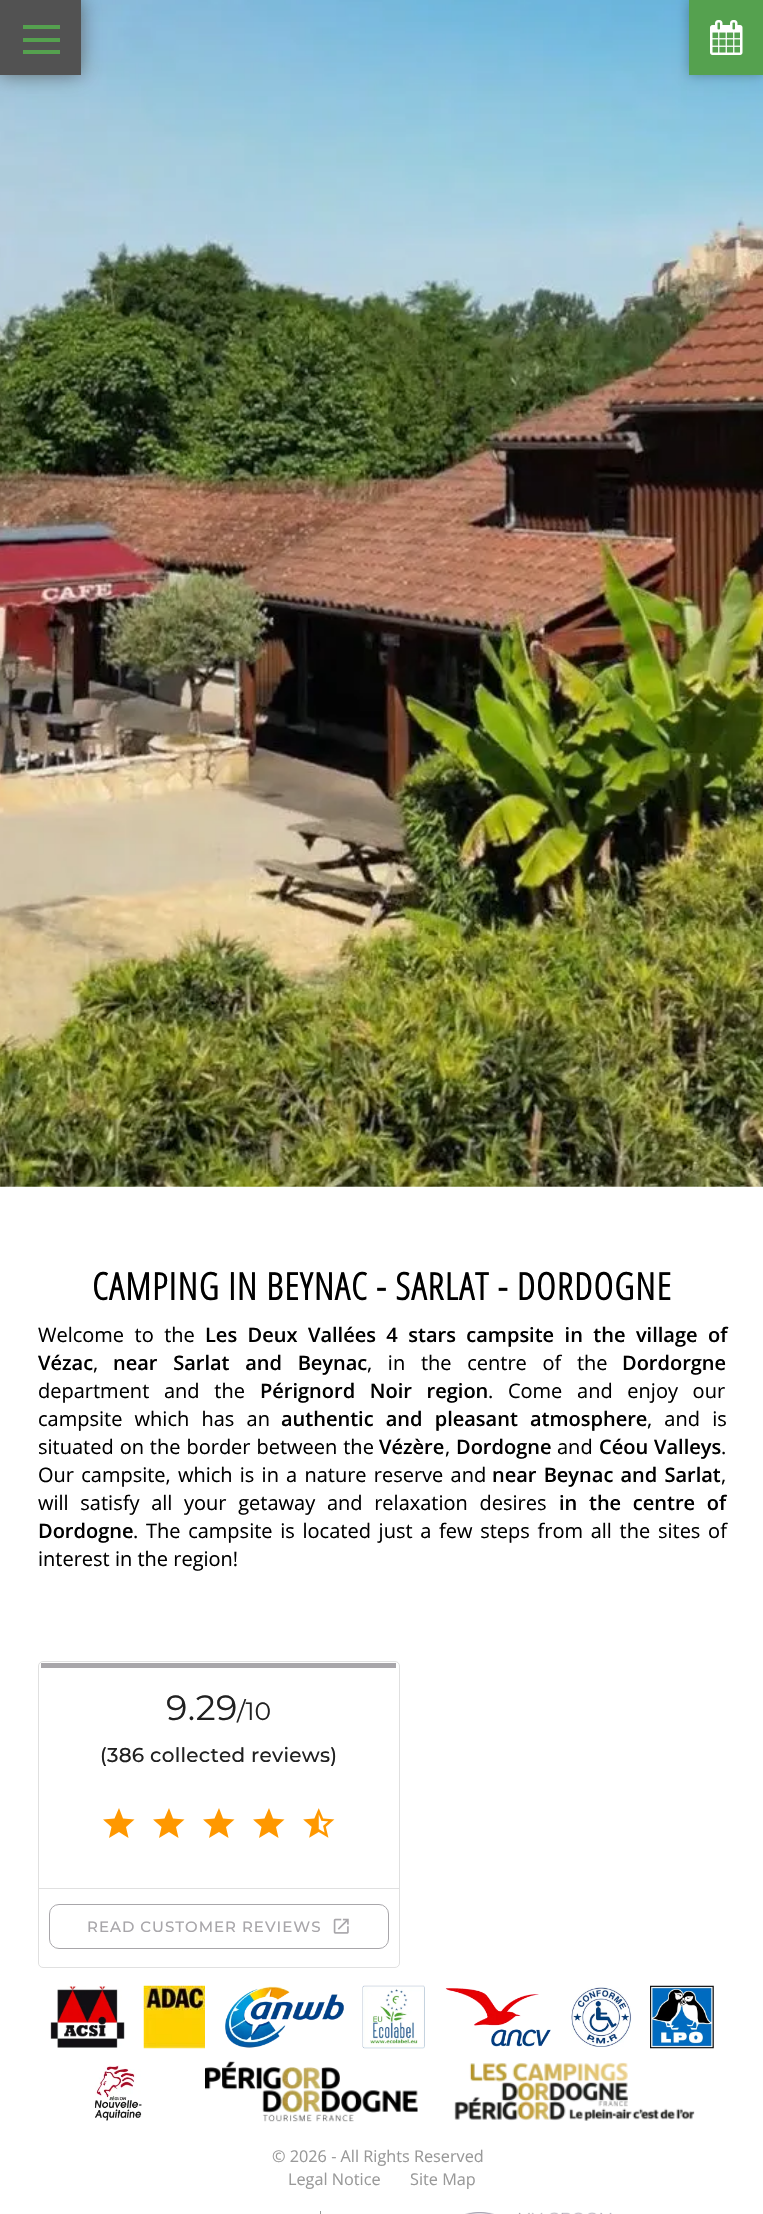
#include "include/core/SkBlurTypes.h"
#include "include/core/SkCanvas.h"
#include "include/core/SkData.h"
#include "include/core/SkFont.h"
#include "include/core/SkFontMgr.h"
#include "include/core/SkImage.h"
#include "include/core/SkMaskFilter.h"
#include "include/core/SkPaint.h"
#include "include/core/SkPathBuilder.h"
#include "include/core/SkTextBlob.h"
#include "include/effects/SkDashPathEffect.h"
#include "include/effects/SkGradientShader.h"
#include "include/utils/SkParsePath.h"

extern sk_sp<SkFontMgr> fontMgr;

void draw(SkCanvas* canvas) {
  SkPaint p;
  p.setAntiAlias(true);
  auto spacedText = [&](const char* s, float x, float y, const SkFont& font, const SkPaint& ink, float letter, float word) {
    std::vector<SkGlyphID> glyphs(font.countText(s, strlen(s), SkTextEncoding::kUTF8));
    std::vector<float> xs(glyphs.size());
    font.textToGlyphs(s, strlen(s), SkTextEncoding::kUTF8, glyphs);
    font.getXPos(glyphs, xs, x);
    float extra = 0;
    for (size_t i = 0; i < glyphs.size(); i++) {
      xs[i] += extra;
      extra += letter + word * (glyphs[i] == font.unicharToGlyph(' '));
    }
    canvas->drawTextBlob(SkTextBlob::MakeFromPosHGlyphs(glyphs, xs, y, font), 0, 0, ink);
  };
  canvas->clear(SK_ColorWHITE);
  canvas->drawImageRect(SkImages::DeferredFromEncodedData(SkData::MakeFromFileName("images/1.png")), SkRect::MakeLTRB(0, 0, 763, 1187), SkSamplingOptions());
  p.setColor(SkColorSetARGB(204, 82, 82, 82));
  p.setMaskFilter(SkMaskFilter::MakeBlur(kNormal_SkBlurStyle, 9.5f));
  canvas->drawRect(SkRect::MakeLTRB(0, 0, 81, 75), p);
  p.setMaskFilter(nullptr);
  p.setColor(SkColorSetRGB(82, 82, 82));
  canvas->drawRect(SkRect::MakeLTRB(0, 0, 81, 75), p);
  p.setColor(SkColorSetRGB(85, 161, 79));
  canvas->drawRect(SkRect::MakeLTRB(23, 25, 60, 29), p);
  canvas->drawRect(SkRect::MakeLTRB(23, 38, 60, 42), p);
  canvas->drawRect(SkRect::MakeLTRB(23, 50, 60, 54), p);
  p.setColor(SkColorSetARGB(77, 0, 0, 0));
  p.setMaskFilter(SkMaskFilter::MakeBlur(kNormal_SkBlurStyle, 6));
  canvas->drawRect(SkRect::MakeLTRB(689, 0, 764, 75), p);
  p.setMaskFilter(nullptr);
  p.setColor(SkColorSetRGB(85, 161, 79));
  canvas->drawRect(SkRect::MakeLTRB(689, 0, 763, 75), p);
  canvas->drawImageRect(SkImages::DeferredFromEncodedData(SkData::MakeFromFileName("images/2.png")), SkRect::MakeLTRB(710, 20, 743, 55), SkSamplingOptions());
  p.setStyle(SkPaint::kStroke_Style);
  p.setStrokeWidth(1);
  p.setColor(SkColorSetRGB(224, 224, 224));
  canvas->drawRoundRect(SkRect::MakeLTRB(38.5f, 1661.5f, 399.5f, 1967.5f), 4.5f, 4.5f, p);
  p.setStyle(SkPaint::kFill_Style);
  p.setColor(SkColorSetRGB(168, 166, 170));
  canvas->drawRect(SkRect::MakeLTRB(41, 1663, 396, 1668), p);
  p.setColor(SkColorSetRGB(255, 152, 0));
  canvas->drawPath(SkPathBuilder().moveTo(119, 1832).lineTo(128.5f, 1838).lineTo(126, 1827).lineTo(134.5f, 1819.5f).lineTo(123, 1818.5f).lineTo(119, 1808).lineTo(114.5f, 1818.5f).lineTo(103, 1819.5f).lineTo(111.5f, 1827).lineTo(109, 1838).close().detach(), p);
  canvas->drawPath(SkPathBuilder().moveTo(169, 1832).lineTo(178.5f, 1838).lineTo(176, 1827).lineTo(184.5f, 1819.5f).lineTo(173, 1818.5f).lineTo(169, 1808).lineTo(164.5f, 1818.5f).lineTo(153, 1819.5f).lineTo(161.5f, 1827).lineTo(159, 1838).close().detach(), p);
  canvas->drawPath(SkPathBuilder().moveTo(219, 1832).lineTo(228.5f, 1838).lineTo(226, 1827).lineTo(234.5f, 1819.5f).lineTo(223, 1818.5f).lineTo(219, 1808).lineTo(214.5f, 1818.5f).lineTo(203, 1819.5f).lineTo(211.5f, 1827).lineTo(209, 1838).close().detach(), p);
  canvas->drawPath(SkPathBuilder().moveTo(269, 1832).lineTo(278.5f, 1838).lineTo(276, 1827).lineTo(284.5f, 1819.5f).lineTo(273, 1818.5f).lineTo(269, 1808).lineTo(264.5f, 1818.5f).lineTo(253, 1819.5f).lineTo(261.5f, 1827).lineTo(259, 1838).close().detach(), p);
  canvas->drawImageRect(SkImages::DeferredFromEncodedData(SkData::MakeFromFileName("images/3.png")), SkRect::MakeLTRB(303, 1808, 335, 1838), SkSamplingOptions());
  p.setColor(SkColorSetRGB(224, 224, 224));
  canvas->drawRect(SkRect::MakeLTRB(39, 1888, 399, 1889), p);
  p.setStyle(SkPaint::kStroke_Style);
  p.setColor(SkColorSetRGB(168, 166, 170));
  canvas->drawRoundRect(SkRect::MakeLTRB(49.5f, 1904.5f, 388.5f, 1948.5f), 9.5f, 9.5f, p);
  canvas->drawImageRect(SkImages::DeferredFromEncodedData(SkData::MakeFromFileName("images/4.png")), SkRect::MakeLTRB(333, 1918, 349, 1934), SkSamplingOptions());
  canvas->drawImageRect(SkImages::DeferredFromEncodedData(SkData::MakeFromFileName("images/5.png")), SkRect::MakeLTRB(50, 1986, 125, 2048), SkSamplingOptions());
  canvas->drawImageRect(SkImages::DeferredFromEncodedData(SkData::MakeFromFileName("images/6.png")), SkRect::MakeLTRB(143, 1985, 205, 2049), SkSamplingOptions());
  canvas->drawImageRect(SkImages::DeferredFromEncodedData(SkData::MakeFromFileName("images/7.png")), SkRect::MakeLTRB(225, 1986, 344, 2048), SkSamplingOptions());
  canvas->drawImageRect(SkImages::DeferredFromEncodedData(SkData::MakeFromFileName("images/8.png")), SkRect::MakeLTRB(362, 1985, 425, 2049), SkSamplingOptions());
  canvas->drawImageRect(SkImages::DeferredFromEncodedData(SkData::MakeFromFileName("images/9.png")), SkRect::MakeLTRB(445, 1988, 551, 2047), SkSamplingOptions());
  canvas->drawImageRect(SkImages::DeferredFromEncodedData(SkData::MakeFromFileName("images/10.png")), SkRect::MakeLTRB(571, 1987, 632, 2047), SkSamplingOptions());
  canvas->drawImageRect(SkImages::DeferredFromEncodedData(SkData::MakeFromFileName("images/11.png")), SkRect::MakeLTRB(650, 1985, 714, 2049), SkSamplingOptions());
  canvas->drawImageRect(SkImages::DeferredFromEncodedData(SkData::MakeFromFileName("images/12.png")), SkRect::MakeLTRB(93, 2065, 142, 2121), SkSamplingOptions());
  canvas->drawImageRect(SkImages::DeferredFromEncodedData(SkData::MakeFromFileName("images/13.png")), SkRect::MakeLTRB(205, 2061, 418, 2122), SkSamplingOptions());
  canvas->drawImageRect(SkImages::DeferredFromEncodedData(SkData::MakeFromFileName("images/14.png")), SkRect::MakeLTRB(454, 2062, 695, 2121), SkSamplingOptions());
  p.setStyle(SkPaint::kFill_Style);
  p.setColor(SkColorSetRGB(153, 153, 153));
  canvas->drawRect(SkRect::MakeLTRB(320, 2211, 321, 2214), p);
  canvas->drawImageRect(SkImages::DeferredFromEncodedData(SkData::MakeFromFileName("images/15.png")), SkRect::MakeLTRB(465, 2212, 612, 2214), SkSamplingOptions());
  SkFont font1(fontMgr->matchFamilyStyle("Open Sans Condensed", SkFontStyle::Bold()), 37.5f);
  font1.setSubpixel(true);
  p.setColor(SK_ColorBLACK);
  spacedText("CAMPING IN BEYNAC - SARLAT - DORDOGNE", 92, 1300, font1, p, 1.25f, 0);
  SkFont font2(fontMgr->matchFamilyStyle("Open Sans", SkFontStyle::Normal()), 20);
  font2.setSubpixel(true);
  spacedText("Welcome to the", 38, 1342, font2, p, 0, 5.25f);
  SkFont font3(fontMgr->matchFamilyStyle("Open Sans", SkFontStyle(600, SkFontStyle::kNormal_Width, SkFontStyle::kUpright_Slant)), 20);
  font3.setSubpixel(true);
  spacedText("Les Deux Vallées 4 stars campsite in the village of", 205, 1342, font3, p, 0, 5.25f);
  canvas->drawString("Vézac", 38, 1370, font3, p);
  canvas->drawString(",", 93, 1370, font2, p);
  spacedText("near Sarlat and Beynac", 113, 1370, font3, p, 0, 10.5f);
  spacedText(", in the centre of the", 367, 1370, font2, p, 0, 10.5f);
  canvas->drawString("Dordorgne", 622, 1370, font3, p);
  spacedText("department and the", 38, 1398, font2, p, 0, 9.5f);
  spacedText("Pérignord Noir region", 260, 1398, font3, p, 0, 9.5f);
  spacedText(". Come and enjoy our", 488, 1398, font2, p, 0, 9.5f);
  spacedText("campsite which has an", 38, 1426, font2, p, 0, 7);
  spacedText("authentic and pleasant atmosphere", 281, 1426, font3, p, 0, 7);
  spacedText(", and is", 647, 1426, font2, p, 0, 7);
  spacedText("situated on the border between the", 38, 1454, font2, p, 0, 0.75f);
  canvas->drawString("Vézère", 379, 1454, font3, p);
  canvas->drawString(",", 445, 1454, font2, p);
  canvas->drawString("Dordogne", 456, 1454, font3, p);
  canvas->drawString("and", 557, 1454, font2, p);
  spacedText("Céou Valleys", 599, 1454, font3, p, 0, 0.75f);
  canvas->drawString(".", 721, 1454, font2, p);
  spacedText("Our campsite, which is in a nature reserve and", 38, 1482, font2, p, 0, 2);
  spacedText("near Beynac and Sarlat", 492, 1482, font3, p, 0, 2);
  canvas->drawString(",", 721, 1482, font2, p);
  spacedText("will satisfy all your getaway and relaxation desires", 38, 1510, font2, p, 0, 6.5f);
  spacedText("in the centre of", 559, 1510, font3, p, 0, 6.5f);
  canvas->drawString("Dordogne", 38, 1538, font3, p);
  spacedText(". The campsite is located just a few steps from all the sites of", 133, 1538, font2, p, 0, 2.5f);
  canvas->drawString("interest in the region!", 38, 1566, font2, p);
  SkFont font4(fontMgr->matchFamilyStyle("Montserrat", SkFontStyle::Normal()), 35);
  font4.setSubpixel(true);
  p.setColor(SkColorSetRGB(33, 33, 33));
  spacedText("9.29", 166, 1720, font4, p, 0.5f, 0);
  SkFont font5(fontMgr->matchFamilyStyle("Montserrat", SkFontStyle::Normal()), 25);
  font5.setSubpixel(true);
  canvas->drawString("/10", 237, 1720, font5, p);
  SkFont font6(fontMgr->matchFamilyStyle("Montserrat", SkFontStyle(500, SkFontStyle::kNormal_Width, SkFontStyle::kUpright_Slant)), 20);
  font6.setSubpixel(true);
  spacedText("(386 collected reviews)", 100, 1762, font6, p, 0.25f, 0);
  SkFont font7(fontMgr->matchFamilyStyle("Montserrat", SkFontStyle(500, SkFontStyle::kNormal_Width, SkFontStyle::kUpright_Slant)), 15);
  font7.setSubpixel(true);
  p.setColor(SkColorSetRGB(168, 166, 170));
  spacedText("READ CUSTOMER REVIEWS", 87, 1932, font7, p, 1, 0);
  SkFont font8(fontMgr->matchFamilyStyle("Open Sans", SkFontStyle::Normal()), 16.25f);
  font8.setSubpixel(true);
  p.setColor(SkColorSetRGB(153, 153, 153));
  canvas->drawString("© 2026 - All Rights Reserved", 272, 2162, font8, p);
  canvas->drawString("Legal Notice", 288, 2185, font8, p);
  canvas->drawString("Site Map", 410, 2185, font8, p);
}
